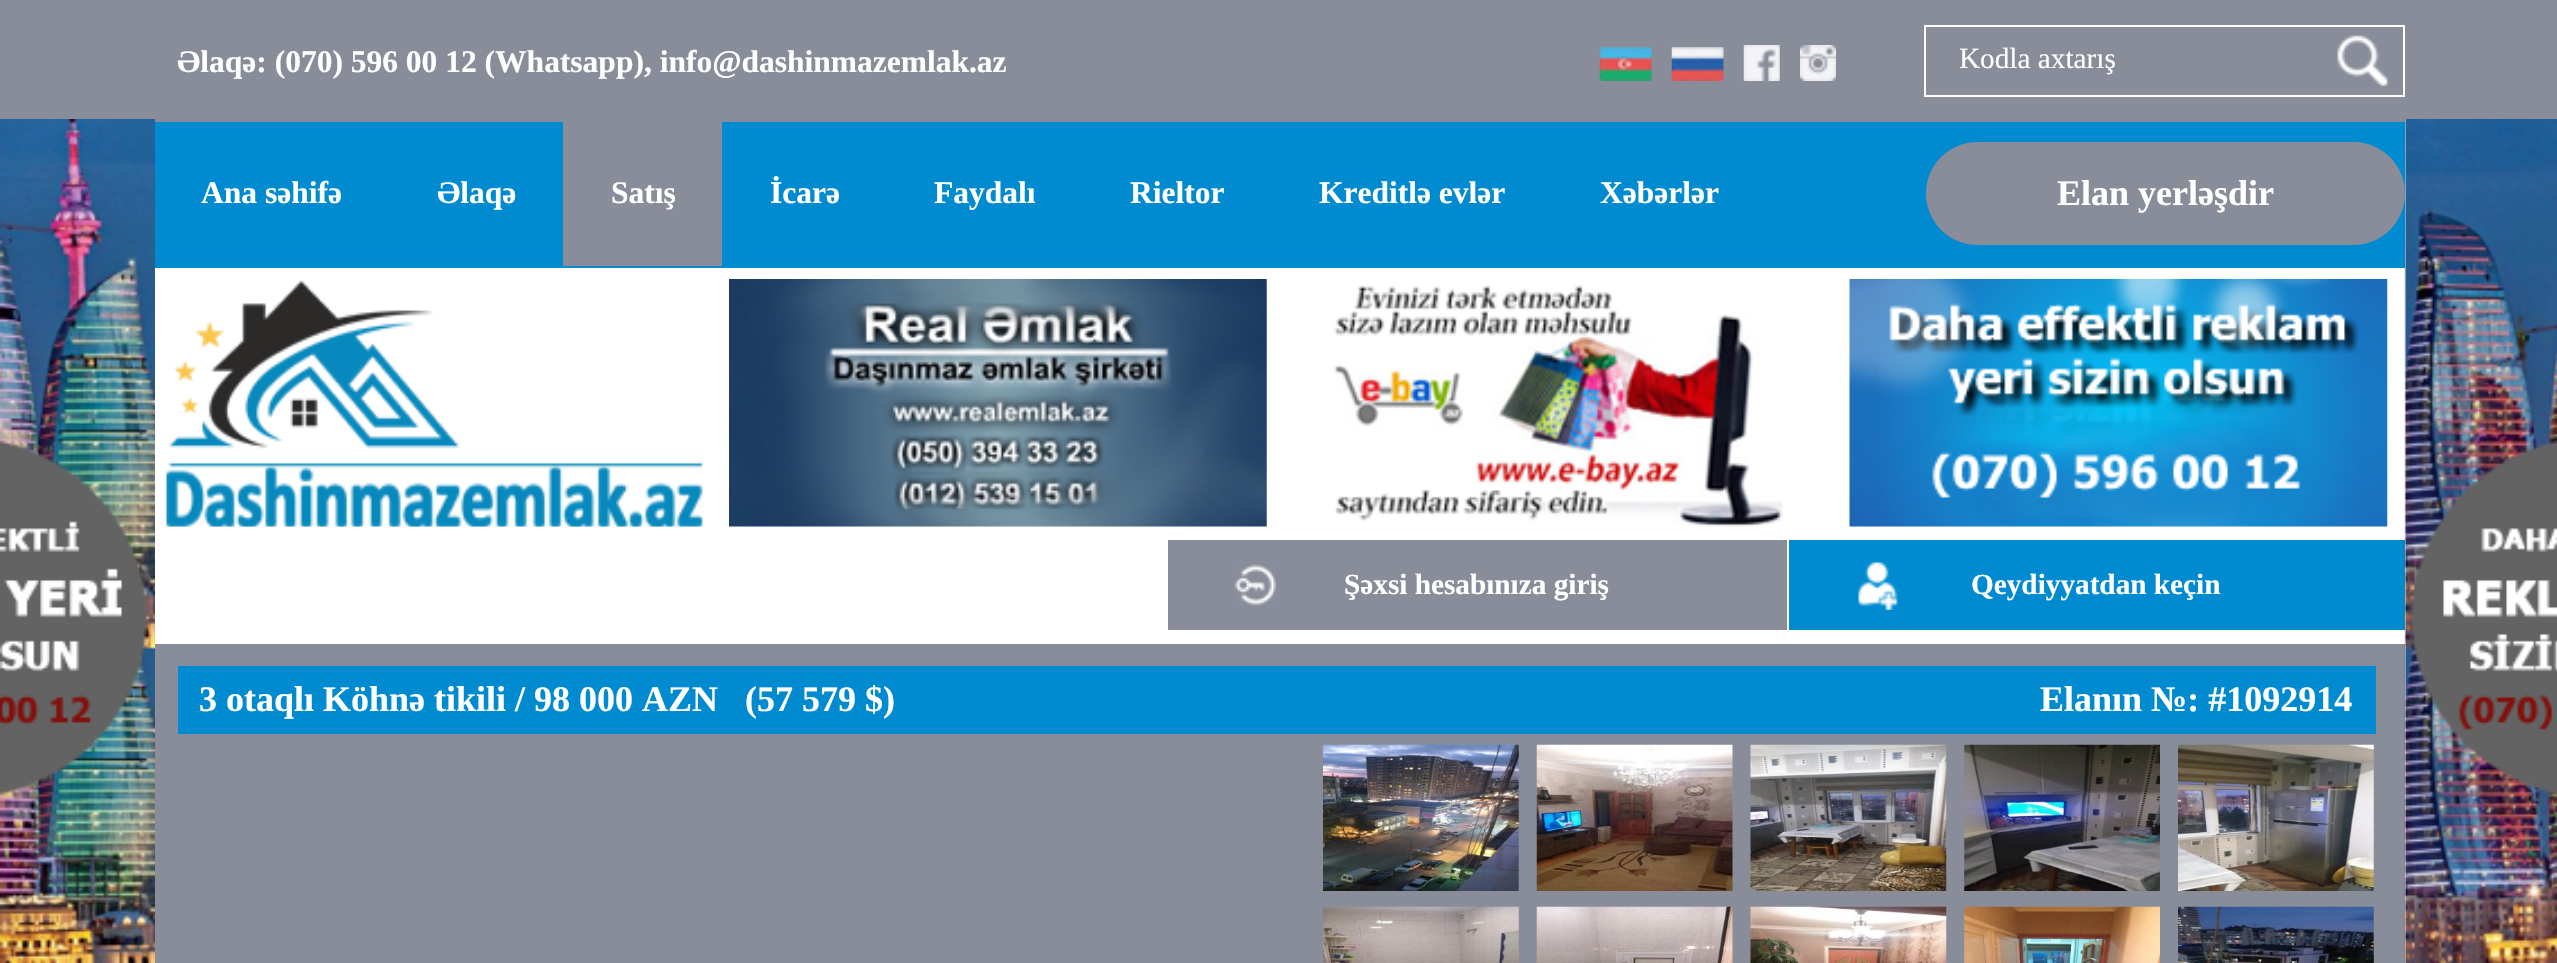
#include "include/core/SkBlurTypes.h"
#include "include/core/SkCanvas.h"
#include "include/core/SkData.h"
#include "include/core/SkFont.h"
#include "include/core/SkFontMgr.h"
#include "include/core/SkImage.h"
#include "include/core/SkMaskFilter.h"
#include "include/core/SkPaint.h"
#include "include/core/SkPathBuilder.h"
#include "include/core/SkTextBlob.h"
#include "include/effects/SkDashPathEffect.h"
#include "include/effects/SkGradientShader.h"
#include "include/utils/SkParsePath.h"

extern sk_sp<SkFontMgr> fontMgr;

void draw(SkCanvas* canvas) {
  SkPaint p;
  p.setAntiAlias(true);
  canvas->clear(SK_ColorWHITE);
  p.setColor(SkColorSetRGB(137, 141, 154));
  canvas->drawRect(SkRect::MakeLTRB(0, 0, 2557, 122), p);
  canvas->drawImageRect(SkImages::DeferredFromEncodedData(SkData::MakeFromFileName("images/1.png")), SkRect::MakeLTRB(1599, 47, 1652, 81), SkSamplingOptions());
  canvas->drawImageRect(SkImages::DeferredFromEncodedData(SkData::MakeFromFileName("images/2.png")), SkRect::MakeLTRB(1671, 47, 1724, 81), SkSamplingOptions());
  canvas->drawImageRect(SkImages::DeferredFromEncodedData(SkData::MakeFromFileName("images/3.png")), SkRect::MakeLTRB(1743, 45, 1780, 81), SkSamplingOptions());
  canvas->drawImageRect(SkImages::DeferredFromEncodedData(SkData::MakeFromFileName("images/4.png")), SkRect::MakeLTRB(1800, 45, 1836, 81), SkSamplingOptions());
  p.setStyle(SkPaint::kStroke_Style);
  p.setStrokeWidth(2);
  p.setColor(SK_ColorWHITE);
  canvas->drawRect(SkRect::MakeLTRB(1925, 26, 2404, 96), p);
  canvas->drawImageRect(SkImages::DeferredFromEncodedData(SkData::MakeFromFileName("images/5.png")), SkRect::MakeLTRB(2337, 35, 2388, 87), SkSamplingOptions());
  p.setStyle(SkPaint::kFill_Style);
  p.setColor(SkColorSetRGB(0, 138, 208));
  canvas->drawRect(SkRect::MakeLTRB(155, 122, 2405, 268), p);
  p.setColor(SkColorSetRGB(137, 141, 154));
  canvas->drawRect(SkRect::MakeLTRB(563, 122, 722, 266), p);
  canvas->drawRoundRect(SkRect::MakeLTRB(1926, 142, 2405, 245), 51.5f, 51.5f, p);
  canvas->drawImageRect(SkImages::DeferredFromEncodedData(SkData::MakeFromFileName("images/6.png")), SkRect::MakeLTRB(0, 119, 155, 963), SkSamplingOptions());
  canvas->drawImageRect(SkImages::DeferredFromEncodedData(SkData::MakeFromFileName("images/7.png")), SkRect::MakeLTRB(166, 280, 703, 527), SkSamplingOptions());
  canvas->drawImageRect(SkImages::DeferredFromEncodedData(SkData::MakeFromFileName("images/8.png")), SkRect::MakeLTRB(729, 279, 1267, 527), SkSamplingOptions());
  canvas->drawImageRect(SkImages::DeferredFromEncodedData(SkData::MakeFromFileName("images/9.png")), SkRect::MakeLTRB(1333, 285, 1783, 527), SkSamplingOptions());
  canvas->drawImageRect(SkImages::DeferredFromEncodedData(SkData::MakeFromFileName("images/10.png")), SkRect::MakeLTRB(1849, 279, 2388, 527), SkSamplingOptions());
  p.setColor(SK_ColorWHITE);
  canvas->drawRect(SkRect::MakeLTRB(2405, 119, 2406, 122), p);
  p.setColor(SkColorSetRGB(0, 138, 208));
  canvas->drawRect(SkRect::MakeLTRB(1789, 540, 2405, 630), p);
  p.setColor(SkColorSetRGB(137, 141, 154));
  canvas->drawRect(SkRect::MakeLTRB(155, 644, 2405, 963), p);
  canvas->drawImageRect(SkImages::DeferredFromEncodedData(SkData::MakeFromFileName("images/11.png")), SkRect::MakeLTRB(2404, 119, 2557, 963), SkSamplingOptions());
  canvas->drawRect(SkRect::MakeLTRB(1168, 540, 1787, 630), p);
  canvas->drawImageRect(SkImages::DeferredFromEncodedData(SkData::MakeFromFileName("images/12.png")), SkRect::MakeLTRB(1235, 564, 1276, 606), SkSamplingOptions());
  canvas->drawImageRect(SkImages::DeferredFromEncodedData(SkData::MakeFromFileName("images/13.png")), SkRect::MakeLTRB(1858, 562, 1898, 610), SkSamplingOptions());
  p.setColor(SkColorSetRGB(0, 138, 208));
  canvas->drawRect(SkRect::MakeLTRB(178, 666, 2376, 734), p);
  canvas->drawImageRect(SkImages::DeferredFromEncodedData(SkData::MakeFromFileName("images/14.png")), SkRect::MakeLTRB(1323, 744, 1519, 891), SkSamplingOptions());
  canvas->drawImageRect(SkImages::DeferredFromEncodedData(SkData::MakeFromFileName("images/15.png")), SkRect::MakeLTRB(1536, 744, 1733, 891), SkSamplingOptions());
  canvas->drawImageRect(SkImages::DeferredFromEncodedData(SkData::MakeFromFileName("images/16.png")), SkRect::MakeLTRB(1750, 744, 1947, 891), SkSamplingOptions());
  canvas->drawImageRect(SkImages::DeferredFromEncodedData(SkData::MakeFromFileName("images/17.png")), SkRect::MakeLTRB(1964, 744, 2160, 891), SkSamplingOptions());
  canvas->drawImageRect(SkImages::DeferredFromEncodedData(SkData::MakeFromFileName("images/18.png")), SkRect::MakeLTRB(2178, 744, 2374, 891), SkSamplingOptions());
  canvas->drawImageRect(SkImages::DeferredFromEncodedData(SkData::MakeFromFileName("images/19.png")), SkRect::MakeLTRB(1323, 906, 1519, 963), SkSamplingOptions());
  canvas->drawImageRect(SkImages::DeferredFromEncodedData(SkData::MakeFromFileName("images/20.png")), SkRect::MakeLTRB(1536, 906, 1733, 963), SkSamplingOptions());
  canvas->drawImageRect(SkImages::DeferredFromEncodedData(SkData::MakeFromFileName("images/21.png")), SkRect::MakeLTRB(1750, 906, 1947, 963), SkSamplingOptions());
  canvas->drawImageRect(SkImages::DeferredFromEncodedData(SkData::MakeFromFileName("images/22.png")), SkRect::MakeLTRB(1964, 906, 2160, 963), SkSamplingOptions());
  canvas->drawImageRect(SkImages::DeferredFromEncodedData(SkData::MakeFromFileName("images/23.png")), SkRect::MakeLTRB(2178, 906, 2374, 963), SkSamplingOptions());
  SkFont font1(fontMgr->matchFamilyStyle("Liberation Serif", SkFontStyle::Bold()), 31.5f);
  font1.setSubpixel(true);
  p.setColor(SK_ColorWHITE);
  canvas->drawString("Əlaqə: (070) 596 00 12 (Whatsapp), info@dashinmazemlak.az", 177, 72, font1, p);
  canvas->save();
  canvas->clipRect(SkRect::MakeLTRB(1960, 41, 2297, 77));
  SkFont font2(fontMgr->matchFamilyStyle("Liberation Serif", SkFontStyle::Normal()), 29.25f);
  font2.setSubpixel(true);
  canvas->drawString("Kodla axtarış", 1959, 68, font2, p);
  canvas->restore();
  canvas->drawString("Ana səhifə", 201, 203, font1, p);
  canvas->drawString("Əlaqə", 437, 203, font1, p);
  canvas->drawString("Satış", 611, 203, font1, p);
  canvas->drawString("İcarə", 770, 203, font1, p);
  canvas->drawString("Faydalı", 934, 203, font1, p);
  canvas->drawString("Rieltor", 1130, 203, font1, p);
  canvas->drawString("Kreditlə evlər", 1319, 203, font1, p);
  canvas->drawString("Xəbərlər", 1600, 203, font1, p);
  SkFont font3(fontMgr->matchFamilyStyle("Liberation Serif", SkFontStyle::Bold()), 36);
  font3.setSubpixel(true);
  canvas->drawString("Elan yerləşdir", 2057, 205, font3, p);
  SkFont font4(fontMgr->matchFamilyStyle("Liberation Serif", SkFontStyle::Bold()), 29.25f);
  font4.setSubpixel(true);
  canvas->drawString("Şəxsi hesabınıza giriş", 1344, 594, font4, p);
  canvas->drawString("Qeydiyyatdan keçin", 1971, 594, font4, p);
  canvas->drawString("3 otaqlı Köhnə tikili / 98 000 AZN   (57 579 $)", 199, 711, font3, p);
  canvas->drawString("Elanın №: #1092914", 2040, 711, font3, p);
}
